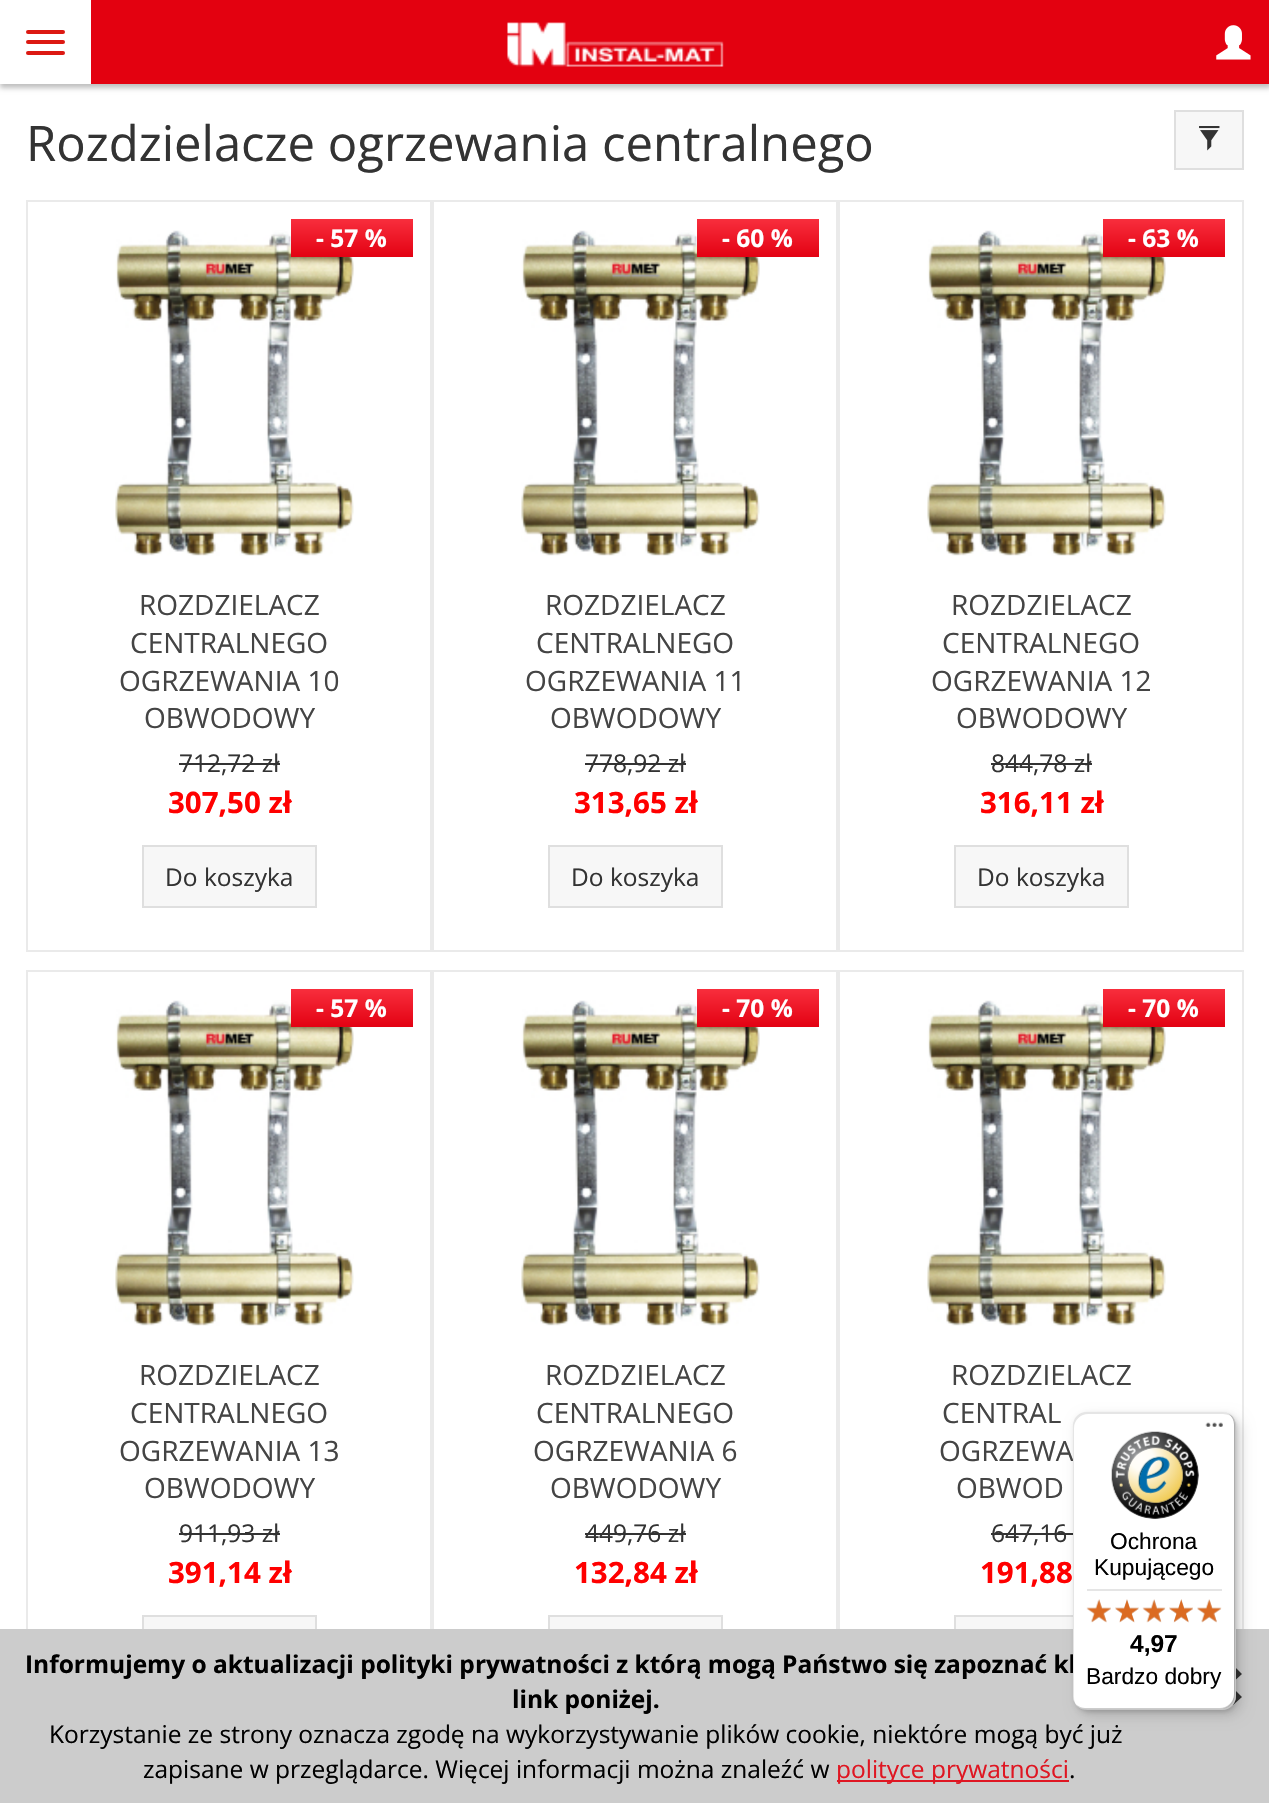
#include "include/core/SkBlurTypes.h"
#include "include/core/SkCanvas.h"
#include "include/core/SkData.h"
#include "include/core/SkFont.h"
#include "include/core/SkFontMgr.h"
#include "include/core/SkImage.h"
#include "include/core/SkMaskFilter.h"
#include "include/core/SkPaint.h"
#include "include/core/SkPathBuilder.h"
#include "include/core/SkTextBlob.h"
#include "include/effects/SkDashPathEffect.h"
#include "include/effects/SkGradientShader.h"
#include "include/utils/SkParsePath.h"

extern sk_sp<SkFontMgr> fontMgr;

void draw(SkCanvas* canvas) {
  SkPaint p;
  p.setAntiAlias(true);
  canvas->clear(SK_ColorWHITE);
  p.setColor(SkColorSetARGB(64, 0, 0, 0));
  p.setMaskFilter(SkMaskFilter::MakeBlur(kNormal_SkBlurStyle, 2.5f));
  canvas->drawRect(SkRect::MakeLTRB(0, 4, 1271, 88), p);
  p.setMaskFilter(nullptr);
  p.setColor(SkColorSetRGB(227, 1, 16));
  canvas->drawRect(SkRect::MakeLTRB(91, 0, 1269, 84), p);
  p.setColor(SK_ColorWHITE);
  canvas->drawRect(SkRect::MakeLTRB(0, 0, 91, 84), p);
  p.setColor(SkColorSetRGB(220, 25, 18));
  canvas->drawRoundRect(SkRect::MakeLTRB(26, 30, 65, 34), 2, 2, p);
  canvas->drawRoundRect(SkRect::MakeLTRB(26, 40, 65, 44), 2, 2, p);
  canvas->drawRoundRect(SkRect::MakeLTRB(26, 51, 65, 55), 2, 2, p);
  canvas->drawImageRect(SkImages::DeferredFromEncodedData(SkData::MakeFromFileName("images/1.png")), SkRect::MakeLTRB(507, 22, 724, 67), SkSamplingOptions());
  canvas->drawImageRect(SkImages::DeferredFromEncodedData(SkData::MakeFromFileName("images/2.png")), SkRect::MakeLTRB(1216, 25, 1251, 60), SkSamplingOptions());
  p.setColor(SkColorSetRGB(247, 247, 247));
  canvas->drawRect(SkRect::MakeLTRB(1175, 111, 1243, 169), p);
  p.setStyle(SkPaint::kStroke_Style);
  p.setStrokeWidth(2);
  p.setColor(SkColorSetRGB(223, 223, 223));
  canvas->drawRect(SkRect::MakeLTRB(1175, 111, 1243, 169), p);
  canvas->drawImageRect(SkImages::DeferredFromEncodedData(SkData::MakeFromFileName("images/3.png")), SkRect::MakeLTRB(1199, 126, 1220, 151), SkSamplingOptions());
  p.setColor(SkColorSetRGB(234, 234, 234));
  canvas->drawRect(SkRect::MakeLTRB(27, 201, 431, 951), p);
  canvas->drawImageRect(SkImages::DeferredFromEncodedData(SkData::MakeFromFileName("images/4.png")), SkRect::MakeLTRB(115, 230, 354, 556), SkSamplingOptions());
  p.setStyle(SkPaint::kFill_Style);
  {
    const SkColor colors[] = {SkColorSetRGB(248, 46, 61), SkColorSetRGB(227, 1, 18)};
    const float stops[] = {0, 1};
    const SkPoint ends[] = {{352, 219}, {352, 257}};
    p.setShader(SkGradientShader::MakeLinear(ends, colors, stops, 2, SkTileMode::kClamp));
    p.setAlpha(255);
  }
  canvas->drawRect(SkRect::MakeLTRB(291, 219, 413, 257), p);
  p.setShader(nullptr);
  p.setColor(SkColorSetRGB(51, 51, 51));
  canvas->drawRect(SkRect::MakeLTRB(179, 763, 280, 765), p);
  p.setColor(SkColorSetRGB(247, 247, 247));
  canvas->drawRect(SkRect::MakeLTRB(143, 846, 316, 907), p);
  p.setStyle(SkPaint::kStroke_Style);
  p.setColor(SkColorSetRGB(223, 223, 223));
  canvas->drawRect(SkRect::MakeLTRB(143, 846, 316, 907), p);
  p.setColor(SkColorSetRGB(234, 234, 234));
  canvas->drawRect(SkRect::MakeLTRB(433, 201, 837, 951), p);
  canvas->drawImageRect(SkImages::DeferredFromEncodedData(SkData::MakeFromFileName("images/4.png")), SkRect::MakeLTRB(521, 230, 760, 556), SkSamplingOptions());
  p.setStyle(SkPaint::kFill_Style);
  {
    const SkColor colors[] = {SkColorSetRGB(248, 46, 61), SkColorSetRGB(227, 1, 18)};
    const float stops[] = {0, 1};
    const SkPoint ends[] = {{758, 219}, {758, 257}};
    p.setShader(SkGradientShader::MakeLinear(ends, colors, stops, 2, SkTileMode::kClamp));
    p.setAlpha(255);
  }
  canvas->drawRect(SkRect::MakeLTRB(697, 219, 819, 257), p);
  p.setShader(nullptr);
  p.setColor(SkColorSetRGB(51, 51, 51));
  canvas->drawRect(SkRect::MakeLTRB(585, 763, 686, 765), p);
  p.setColor(SkColorSetRGB(247, 247, 247));
  canvas->drawRect(SkRect::MakeLTRB(549, 846, 722, 907), p);
  p.setStyle(SkPaint::kStroke_Style);
  p.setColor(SkColorSetRGB(223, 223, 223));
  canvas->drawRect(SkRect::MakeLTRB(549, 846, 722, 907), p);
  p.setColor(SkColorSetRGB(234, 234, 234));
  canvas->drawRect(SkRect::MakeLTRB(839, 201, 1243, 951), p);
  canvas->drawImageRect(SkImages::DeferredFromEncodedData(SkData::MakeFromFileName("images/4.png")), SkRect::MakeLTRB(927, 230, 1166, 556), SkSamplingOptions());
  p.setStyle(SkPaint::kFill_Style);
  {
    const SkColor colors[] = {SkColorSetRGB(248, 46, 61), SkColorSetRGB(227, 1, 18)};
    const float stops[] = {0, 1};
    const SkPoint ends[] = {{1164, 219}, {1164, 257}};
    p.setShader(SkGradientShader::MakeLinear(ends, colors, stops, 2, SkTileMode::kClamp));
    p.setAlpha(255);
  }
  canvas->drawRect(SkRect::MakeLTRB(1103, 219, 1225, 257), p);
  p.setShader(nullptr);
  p.setColor(SkColorSetRGB(51, 51, 51));
  canvas->drawRect(SkRect::MakeLTRB(991, 763, 1092, 765), p);
  p.setColor(SkColorSetRGB(247, 247, 247));
  canvas->drawRect(SkRect::MakeLTRB(955, 846, 1128, 907), p);
  p.setStyle(SkPaint::kStroke_Style);
  p.setColor(SkColorSetRGB(223, 223, 223));
  canvas->drawRect(SkRect::MakeLTRB(955, 846, 1128, 907), p);
  p.setColor(SkColorSetRGB(234, 234, 234));
  canvas->drawRect(SkRect::MakeLTRB(27, 971, 431, 1721), p);
  canvas->drawImageRect(SkImages::DeferredFromEncodedData(SkData::MakeFromFileName("images/5.png")), SkRect::MakeLTRB(115, 1000, 354, 1326), SkSamplingOptions());
  p.setStyle(SkPaint::kFill_Style);
  {
    const SkColor colors[] = {SkColorSetRGB(248, 46, 61), SkColorSetRGB(227, 1, 18)};
    const float stops[] = {0, 1};
    const SkPoint ends[] = {{352, 989}, {352, 1027}};
    p.setShader(SkGradientShader::MakeLinear(ends, colors, stops, 2, SkTileMode::kClamp));
    p.setAlpha(255);
  }
  canvas->drawRect(SkRect::MakeLTRB(291, 989, 413, 1027), p);
  p.setShader(nullptr);
  p.setColor(SkColorSetRGB(51, 51, 51));
  canvas->drawRect(SkRect::MakeLTRB(179, 1533, 280, 1535), p);
  p.setColor(SkColorSetRGB(247, 247, 247));
  canvas->drawRect(SkRect::MakeLTRB(144, 1617, 315, 1629), p);
  p.setStyle(SkPaint::kStroke_Style);
  p.setColor(SkColorSetRGB(223, 223, 223));
  canvas->drawRect(SkRect::MakeLTRB(143, 1616, 316, 1677), p);
  p.setColor(SkColorSetRGB(234, 234, 234));
  canvas->drawRect(SkRect::MakeLTRB(433, 971, 837, 1721), p);
  canvas->drawImageRect(SkImages::DeferredFromEncodedData(SkData::MakeFromFileName("images/5.png")), SkRect::MakeLTRB(521, 1000, 760, 1326), SkSamplingOptions());
  p.setStyle(SkPaint::kFill_Style);
  {
    const SkColor colors[] = {SkColorSetRGB(248, 46, 61), SkColorSetRGB(227, 1, 18)};
    const float stops[] = {0, 1};
    const SkPoint ends[] = {{758, 989}, {758, 1027}};
    p.setShader(SkGradientShader::MakeLinear(ends, colors, stops, 2, SkTileMode::kClamp));
    p.setAlpha(255);
  }
  canvas->drawRect(SkRect::MakeLTRB(697, 989, 819, 1027), p);
  p.setShader(nullptr);
  p.setColor(SkColorSetRGB(51, 51, 51));
  canvas->drawRect(SkRect::MakeLTRB(585, 1533, 686, 1535), p);
  p.setColor(SkColorSetRGB(247, 247, 247));
  canvas->drawRect(SkRect::MakeLTRB(550, 1617, 721, 1629), p);
  p.setStyle(SkPaint::kStroke_Style);
  p.setColor(SkColorSetRGB(223, 223, 223));
  canvas->drawRect(SkRect::MakeLTRB(549, 1616, 722, 1677), p);
  p.setColor(SkColorSetRGB(234, 234, 234));
  canvas->drawRect(SkRect::MakeLTRB(839, 971, 1243, 1721), p);
  canvas->drawImageRect(SkImages::DeferredFromEncodedData(SkData::MakeFromFileName("images/5.png")), SkRect::MakeLTRB(927, 1000, 1166, 1326), SkSamplingOptions());
  p.setStyle(SkPaint::kFill_Style);
  {
    const SkColor colors[] = {SkColorSetRGB(248, 46, 61), SkColorSetRGB(227, 1, 18)};
    const float stops[] = {0, 1};
    const SkPoint ends[] = {{1164, 989}, {1164, 1027}};
    p.setShader(SkGradientShader::MakeLinear(ends, colors, stops, 2, SkTileMode::kClamp));
    p.setAlpha(255);
  }
  canvas->drawRect(SkRect::MakeLTRB(1103, 989, 1225, 1027), p);
  p.setShader(nullptr);
  p.setColor(SkColorSetRGB(51, 51, 51));
  canvas->drawRect(SkRect::MakeLTRB(991, 1533, 1073, 1535), p);
  p.setColor(SkColorSetRGB(247, 247, 247));
  canvas->drawRect(SkRect::MakeLTRB(956, 1617, 1073, 1629), p);
  p.setStyle(SkPaint::kStroke_Style);
  p.setColor(SkColorSetRGB(223, 223, 223));
  canvas->drawRect(SkRect::MakeLTRB(955, 1616, 1128, 1677), p);
  p.setStyle(SkPaint::kFill_Style);
  p.setColor(SkColorSetRGB(204, 204, 204));
  canvas->drawRect(SkRect::MakeLTRB(0, 1629, 1269, 1803), p);
  p.setColor(SkColorSetRGB(223, 22, 34));
  canvas->drawRect(SkRect::MakeLTRB(837, 1780, 1069, 1782), p);
  p.setColor(SkColorSetRGB(51, 51, 51));
  canvas->drawPath(SkPathBuilder().moveTo(1201, 1697).lineTo(1213, 1685).lineTo(1201, 1674).lineTo(1210, 1665).lineTo(1222, 1677).lineTo(1233, 1665).lineTo(1242, 1674).lineTo(1230, 1685).lineTo(1242, 1697).lineTo(1233, 1705).lineTo(1222, 1694).lineTo(1210, 1705).close().detach(), p);
  p.setColor(SkColorSetARGB(38, 0, 0, 0));
  p.setMaskFilter(SkMaskFilter::MakeBlur(kNormal_SkBlurStyle, 7));
  canvas->drawRoundRect(SkRect::MakeLTRB(1078, 1418, 1241, 1715), 14, 14, p);
  p.setMaskFilter(nullptr);
  p.setMaskFilter(SkMaskFilter::MakeBlur(kNormal_SkBlurStyle, 2));
  canvas->drawRoundRect(SkRect::MakeLTRB(1075, 1414, 1237, 1712), 14, 14, p);
  p.setMaskFilter(nullptr);
  SkFont font1(fontMgr->matchFamilyStyle("Open Sans", SkFontStyle::Normal()), 49);
  font1.setSubpixel(true);
  p.setColor(SkColorSetRGB(51, 51, 51));
  canvas->drawString("Rozdzielacze ogrzewania centralnego", 26, 161, font1, p);
  SkFont font2(fontMgr->matchFamilyStyle("Open Sans", SkFontStyle::Bold()), 24.5f);
  font2.setSubpixel(true);
  p.setColor(SK_ColorWHITE);
  canvas->drawString("- 57 %", 316, 247, font2, p);
  SkFont font3(fontMgr->matchFamilyStyle("Open Sans", SkFontStyle::Normal()), 24.5f);
  font3.setSubpixel(true);
  p.setColor(SkColorSetRGB(51, 51, 51));
  canvas->drawString("712,72 zł", 179, 772, font3, p);
  SkFont font4(fontMgr->matchFamilyStyle("Open Sans", SkFontStyle::Bold()), 29.5f);
  font4.setSubpixel(true);
  p.setColor(SkColorSetRGB(255, 0, 0));
  canvas->drawString("307,50 zł", 168, 813, font4, p);
  SkFont font5(fontMgr->matchFamilyStyle("Open Sans", SkFontStyle::Normal()), 28);
  font5.setSubpixel(true);
  p.setColor(SkColorSetRGB(68, 68, 68));
  canvas->drawString("ROZDZIELACZ", 139, 615, font5, p);
  canvas->drawString("CENTRALNEGO", 130, 653, font5, p);
  canvas->drawString("OGRZEWANIA 10", 119, 691, font5, p);
  canvas->drawString("OBWODOWY", 144, 728, font5, p);
  p.setColor(SkColorSetRGB(51, 51, 51));
  canvas->drawString("Do koszyka", 165, 886, font3, p);
  p.setColor(SK_ColorWHITE);
  canvas->drawString("- 60 %", 722, 247, font2, p);
  p.setColor(SkColorSetRGB(51, 51, 51));
  canvas->drawString("778,92 zł", 585, 772, font3, p);
  p.setColor(SkColorSetRGB(255, 0, 0));
  canvas->drawString("313,65 zł", 574, 813, font4, p);
  p.setColor(SkColorSetRGB(68, 68, 68));
  canvas->drawString("ROZDZIELACZ", 545, 615, font5, p);
  canvas->drawString("CENTRALNEGO", 536, 653, font5, p);
  canvas->drawString("OGRZEWANIA 11", 525, 691, font5, p);
  canvas->drawString("OBWODOWY", 550, 728, font5, p);
  p.setColor(SkColorSetRGB(51, 51, 51));
  canvas->drawString("Do koszyka", 571, 886, font3, p);
  p.setColor(SK_ColorWHITE);
  canvas->drawString("- 63 %", 1128, 247, font2, p);
  p.setColor(SkColorSetRGB(51, 51, 51));
  canvas->drawString("844,78 zł", 991, 772, font3, p);
  p.setColor(SkColorSetRGB(255, 0, 0));
  canvas->drawString("316,11 zł", 980, 813, font4, p);
  p.setColor(SkColorSetRGB(68, 68, 68));
  canvas->drawString("ROZDZIELACZ", 951, 615, font5, p);
  canvas->drawString("CENTRALNEGO", 942, 653, font5, p);
  canvas->drawString("OGRZEWANIA 12", 931, 691, font5, p);
  canvas->drawString("OBWODOWY", 956, 728, font5, p);
  p.setColor(SkColorSetRGB(51, 51, 51));
  canvas->drawString("Do koszyka", 977, 886, font3, p);
  p.setColor(SK_ColorWHITE);
  canvas->drawString("- 57 %", 316, 1017, font2, p);
  p.setColor(SkColorSetRGB(51, 51, 51));
  canvas->drawString("911,93 zł", 179, 1542, font3, p);
  p.setColor(SkColorSetRGB(255, 0, 0));
  canvas->drawString("391,14 zł", 168, 1583, font4, p);
  p.setColor(SkColorSetRGB(68, 68, 68));
  canvas->drawString("ROZDZIELACZ", 139, 1385, font5, p);
  canvas->drawString("CENTRALNEGO", 130, 1423, font5, p);
  canvas->drawString("OGRZEWANIA 13", 119, 1461, font5, p);
  canvas->drawString("OBWODOWY", 144, 1498, font5, p);
  p.setColor(SK_ColorWHITE);
  canvas->drawString("- 70 %", 722, 1017, font2, p);
  p.setColor(SkColorSetRGB(51, 51, 51));
  canvas->drawString("449,76 zł", 585, 1542, font3, p);
  p.setColor(SkColorSetRGB(255, 0, 0));
  canvas->drawString("132,84 zł", 574, 1583, font4, p);
  p.setColor(SkColorSetRGB(68, 68, 68));
  canvas->drawString("ROZDZIELACZ", 545, 1385, font5, p);
  canvas->drawString("CENTRALNEGO", 536, 1423, font5, p);
  canvas->drawString("OGRZEWANIA 6", 533, 1461, font5, p);
  canvas->drawString("OBWODOWY", 550, 1498, font5, p);
  p.setColor(SK_ColorWHITE);
  canvas->drawString("- 70 %", 1128, 1017, font2, p);
  p.setColor(SkColorSetRGB(51, 51, 51));
  canvas->drawString("647,16", 991, 1542, font3, p);
  p.setColor(SkColorSetRGB(255, 0, 0));
  canvas->drawString("191,88", 980, 1583, font4, p);
  p.setColor(SkColorSetRGB(68, 68, 68));
  canvas->drawString("ROZDZIELACZ", 951, 1385, font5, p);
  canvas->drawString("CENTRAL", 942, 1423, font5, p);
  canvas->drawString("OGRZEWA", 939, 1461, font5, p);
  canvas->drawString("OBWOD", 956, 1498, font5, p);
  p.setColor(SK_ColorBLACK);
  canvas->drawString("Informujemy o aktualizacji polityki prywatności z którą mogą Państwo się zapoznać kl", 25, 1673, font2, p);
  canvas->drawString("link poniżej.", 512, 1708, font2, p);
  canvas->drawString("Korzystanie ze strony oznacza zgodę na wykorzystywanie plików cookie, niektóre mogą być już", 49, 1743, font3, p);
  canvas->drawString("zapisane w przeglądarce. Więcej informacji można znaleźć w", 143, 1778, font3, p);
  p.setColor(SkColorSetRGB(223, 22, 34));
  canvas->drawString("polityce prywatności", 836, 1778, font3, p);
  p.setColor(SK_ColorBLACK);
  canvas->drawString(".", 1069, 1778, font3, p);
  p.setColor(SK_ColorWHITE);
  canvas->drawRoundRect(SkRect::MakeLTRB(1073, 1412, 1236, 1710), 14, 14, p);
  p.setColor(SkColorSetARGB(26, 0, 0, 0));
  canvas->drawPath(SkPathBuilder().moveTo(1088, 1414).lineTo(1223, 1414).cubicTo(1228, 1414, 1232, 1416, 1235, 1420).cubicTo(1232, 1415, 1228, 1412, 1222, 1412).lineTo(1087, 1412).cubicTo(1079, 1412, 1073, 1418, 1073, 1426).lineTo(1073, 1696).cubicTo(1073, 1699, 1074, 1702, 1076, 1705).cubicTo(1075, 1703, 1074, 1700, 1074, 1698).lineTo(1074, 1428).cubicTo(1074, 1420, 1081, 1414, 1088, 1414).close().detach(), p);
  p.setColor(SkColorSetARGB(51, 0, 0, 0));
  canvas->drawPath(SkPathBuilder().moveTo(1077, 1705).cubicTo(1079, 1708, 1083, 1710, 1087, 1710).lineTo(1222, 1710).cubicTo(1230, 1710, 1236, 1704, 1236, 1696).lineTo(1236, 1426).cubicTo(1236, 1421, 1233, 1416, 1229, 1414).cubicTo(1232, 1417, 1234, 1420, 1234, 1424).lineTo(1234, 1694).cubicTo(1234, 1702, 1227, 1708, 1220, 1708).lineTo(1085, 1708).cubicTo(1082, 1708, 1079, 1707, 1077, 1705).close().detach(), p);
  p.setColor(SkColorSetARGB(51, 50, 50, 50));
  canvas->drawPath(SkPathBuilder().moveTo(1076, 1704).cubicTo(1078, 1708, 1082, 1710, 1087, 1710).lineTo(1222, 1710).cubicTo(1230, 1710, 1236, 1704, 1236, 1696).lineTo(1236, 1426).cubicTo(1236, 1420, 1233, 1416, 1228, 1413).cubicTo(1232, 1416, 1234, 1420, 1234, 1425).lineTo(1234, 1695).cubicTo(1234, 1702, 1228, 1709, 1220, 1709).lineTo(1086, 1709).cubicTo(1082, 1709, 1078, 1707, 1076, 1704).close().detach(), p);
  p.setColor(SkColorSetARGB(77, 255, 255, 255));
  canvas->drawPath(SkPathBuilder().moveTo(1078, 1706).cubicTo(1080, 1709, 1083, 1710, 1087, 1710).lineTo(1222, 1710).cubicTo(1230, 1710, 1236, 1704, 1236, 1696).lineTo(1236, 1426).cubicTo(1236, 1421, 1233, 1416, 1229, 1414).cubicTo(1232, 1416, 1235, 1421, 1235, 1425).lineTo(1235, 1695).cubicTo(1235, 1703, 1228, 1709, 1221, 1709).lineTo(1086, 1709).cubicTo(1083, 1709, 1080, 1708, 1078, 1706).close().detach(), p);
  canvas->drawImageRect(SkImages::DeferredFromEncodedData(SkData::MakeFromFileName("images/6.png")), SkRect::MakeLTRB(1205, 1422, 1223, 1427), SkSamplingOptions());
  canvas->drawImageRect(SkImages::DeferredFromEncodedData(SkData::MakeFromFileName("images/7.png")), SkRect::MakeLTRB(1111, 1431, 1199, 1519), SkSamplingOptions());
  SkFont font6(fontMgr->matchFamilyStyle("Liberation Sans", SkFontStyle::Normal()), 22.75f);
  font6.setSubpixel(true);
  p.setColor(SK_ColorBLACK);
  canvas->drawString("Ochrona", 1110, 1549, font6, p);
  canvas->drawString("Kupującego", 1094, 1575, font6, p);
  p.setColor(SkColorSetRGB(229, 229, 229));
  canvas->drawRect(SkRect::MakeLTRB(1087, 1589, 1222, 1591), p);
  canvas->drawImageRect(SkImages::DeferredFromEncodedData(SkData::MakeFromFileName("images/13.png")), SkRect::MakeLTRB(1087, 1599, 1111, 1622), SkSamplingOptions());
  canvas->drawImageRect(SkImages::DeferredFromEncodedData(SkData::MakeFromFileName("images/8.png")), SkRect::MakeLTRB(1086, 1599, 1111, 1623), SkSamplingOptions());
  canvas->drawImageRect(SkImages::DeferredFromEncodedData(SkData::MakeFromFileName("images/14.png")), SkRect::MakeLTRB(1115, 1599, 1139, 1622), SkSamplingOptions());
  canvas->drawImageRect(SkImages::DeferredFromEncodedData(SkData::MakeFromFileName("images/9.png")), SkRect::MakeLTRB(1115, 1599, 1139, 1623), SkSamplingOptions());
  canvas->drawImageRect(SkImages::DeferredFromEncodedData(SkData::MakeFromFileName("images/15.png")), SkRect::MakeLTRB(1143, 1599, 1165, 1622), SkSamplingOptions());
  canvas->drawImageRect(SkImages::DeferredFromEncodedData(SkData::MakeFromFileName("images/10.png")), SkRect::MakeLTRB(1142, 1599, 1166, 1623), SkSamplingOptions());
  canvas->drawImageRect(SkImages::DeferredFromEncodedData(SkData::MakeFromFileName("images/16.png")), SkRect::MakeLTRB(1169, 1599, 1193, 1622), SkSamplingOptions());
  canvas->drawImageRect(SkImages::DeferredFromEncodedData(SkData::MakeFromFileName("images/11.png")), SkRect::MakeLTRB(1169, 1599, 1193, 1623), SkSamplingOptions());
  canvas->drawImageRect(SkImages::DeferredFromEncodedData(SkData::MakeFromFileName("images/17.png")), SkRect::MakeLTRB(1197, 1599, 1221, 1622), SkSamplingOptions());
  canvas->drawImageRect(SkImages::DeferredFromEncodedData(SkData::MakeFromFileName("images/12.png")), SkRect::MakeLTRB(1197, 1599, 1222, 1623), SkSamplingOptions());
  SkFont font7(fontMgr->matchFamilyStyle("Liberation Sans", SkFontStyle::Bold()), 24.5f);
  font7.setSubpixel(true);
  p.setColor(SK_ColorBLACK);
  canvas->drawString("4,97", 1130, 1652, font7, p);
  canvas->drawString("Bardzo dobry", 1086, 1684, font6, p);
}
